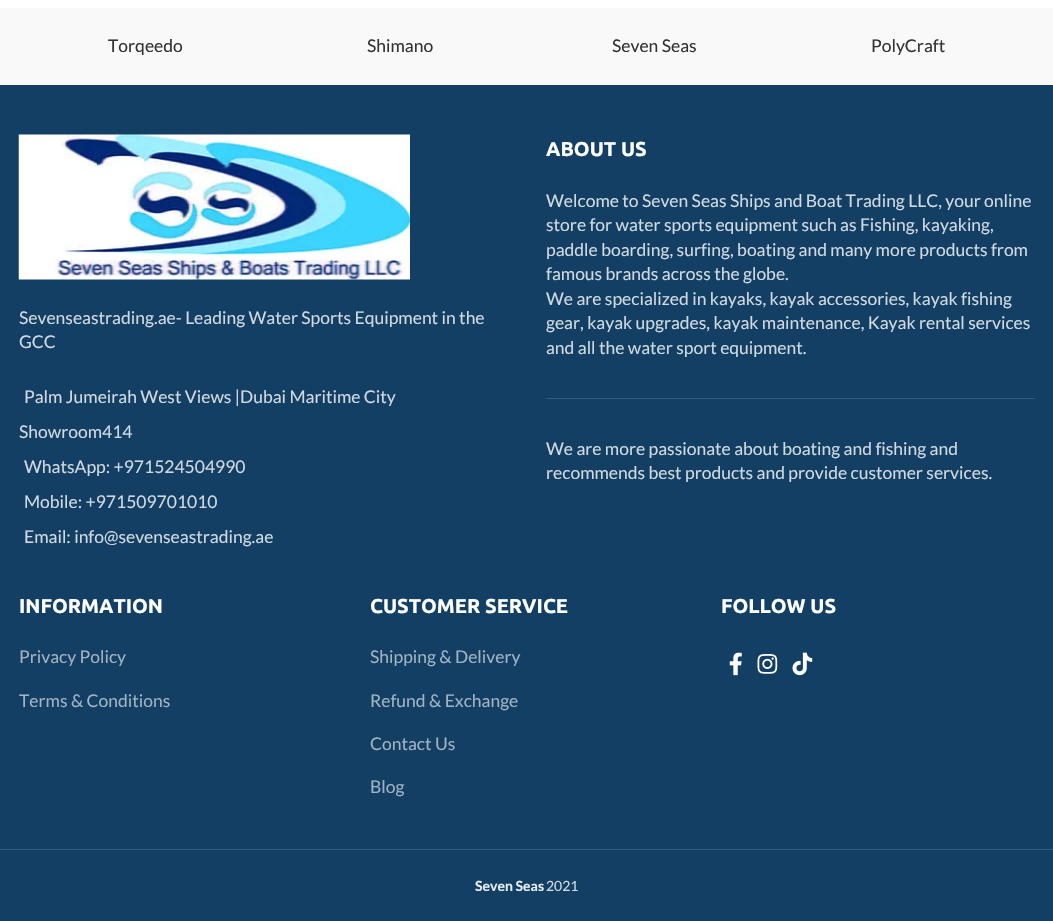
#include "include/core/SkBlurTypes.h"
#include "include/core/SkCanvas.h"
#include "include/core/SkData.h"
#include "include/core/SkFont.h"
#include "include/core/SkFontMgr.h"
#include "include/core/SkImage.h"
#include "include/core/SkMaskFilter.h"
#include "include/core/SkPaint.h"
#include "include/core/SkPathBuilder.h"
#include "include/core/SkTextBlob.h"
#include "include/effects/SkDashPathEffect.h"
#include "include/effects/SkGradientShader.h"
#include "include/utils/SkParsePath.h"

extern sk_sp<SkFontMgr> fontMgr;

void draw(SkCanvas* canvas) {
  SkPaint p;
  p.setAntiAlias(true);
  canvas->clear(SK_ColorWHITE);
  p.setColor(SkColorSetRGB(249, 249, 249));
  canvas->drawRect(SkRect::MakeLTRB(0, 8, 1053, 85), p);
  p.setColor(SkColorSetRGB(19, 63, 100));
  canvas->drawRect(SkRect::MakeLTRB(0, 85, 1053, 921), p);
  canvas->drawImageRect(SkImages::DeferredFromEncodedData(SkData::MakeFromFileName("images/1.png")), SkRect::MakeLTRB(18, 134, 410, 280), SkSamplingOptions());
  p.setColor(SkColorSetRGB(54, 92, 123));
  canvas->drawRect(SkRect::MakeLTRB(546, 398, 1035, 399), p);
  canvas->drawImageRect(SkImages::DeferredFromEncodedData(SkData::MakeFromFileName("images/2.png")), SkRect::MakeLTRB(729, 652, 742, 676), SkSamplingOptions());
  canvas->drawImageRect(SkImages::DeferredFromEncodedData(SkData::MakeFromFileName("images/3.png")), SkRect::MakeLTRB(757, 654, 778, 674), SkSamplingOptions());
  canvas->drawImageRect(SkImages::DeferredFromEncodedData(SkData::MakeFromFileName("images/4.png")), SkRect::MakeLTRB(792, 652, 813, 676), SkSamplingOptions());
  canvas->drawRect(SkRect::MakeLTRB(0, 849, 1053, 850), p);
  SkFont font1(fontMgr->matchFamilyStyle("Lato", SkFontStyle::Normal()), 17.5f);
  font1.setSubpixel(true);
  p.setColor(SkColorSetRGB(51, 51, 51));
  canvas->drawString("Torqeedo", 108, 52, font1, p);
  canvas->drawString("Shimano", 367, 52, font1, p);
  canvas->drawString("Seven Seas", 612, 52, font1, p);
  canvas->drawString("PolyCraft", 871, 52, font1, p);
  p.setColor(SkColorSetRGB(208, 217, 224));
  canvas->drawString("Sevenseastrading.ae- Leading Water Sports Equipment in the", 19, 324, font1, p);
  canvas->drawString("GCC", 19, 348, font1, p);
  canvas->drawString("Palm Jumeirah West Views |Dubai Maritime City", 24, 403, font1, p);
  canvas->drawString("Showroom414", 19, 438, font1, p);
  canvas->drawString("WhatsApp: +971524504990", 24, 473, font1, p);
  canvas->drawString("Mobile: +971509701010", 24, 508, font1, p);
  canvas->drawString("Email: info@sevenseastrading.ae", 24, 543, font1, p);
  SkFont font2(fontMgr->matchFamilyStyle("Ubuntu", SkFontStyle::Bold()), 20);
  font2.setSubpixel(true);
  p.setColor(SK_ColorWHITE);
  canvas->drawString("ABOUT US", 546, 156, font2, p);
  p.setColor(SkColorSetRGB(208, 217, 224));
  canvas->drawString("Welcome to Seven Seas Ships and Boat Trading LLC, your online", 546, 207, font1, p);
  canvas->drawString("store for water sports equipment such as Fishing, kayaking,", 546, 231, font1, p);
  canvas->drawString("paddle boarding, surfing, boating and many more products from", 546, 256, font1, p);
  canvas->drawString("famous brands across the globe.", 546, 280, font1, p);
  canvas->drawString("We are specialized in kayaks, kayak accessories, kayak fishing", 546, 305, font1, p);
  canvas->drawString("gear, kayak upgrades, kayak maintenance, Kayak rental services", 546, 329, font1, p);
  canvas->drawString("and all the water sport equipment.", 546, 354, font1, p);
  canvas->drawString("We are more passionate about boating and fishing and", 546, 455, font1, p);
  canvas->drawString("recommends best products and provide customer services.", 546, 479, font1, p);
  p.setColor(SK_ColorWHITE);
  canvas->drawString("INFORMATION", 19, 613, font2, p);
  p.setColor(SkColorSetRGB(161, 178, 193));
  canvas->drawString("Privacy Policy", 19, 663, font1, p);
  canvas->drawString("Terms & Conditions", 19, 707, font1, p);
  p.setColor(SK_ColorWHITE);
  canvas->drawString("CUSTOMER SERVICE", 370, 613, font2, p);
  p.setColor(SkColorSetRGB(161, 178, 193));
  canvas->drawString("Shipping & Delivery", 370, 663, font1, p);
  canvas->drawString("Refund & Exchange", 370, 707, font1, p);
  canvas->drawString("Contact Us", 370, 750, font1, p);
  canvas->drawString("Blog", 370, 793, font1, p);
  p.setColor(SK_ColorWHITE);
  canvas->drawString("FOLLOW US", 721, 613, font2, p);
  SkFont font3(fontMgr->matchFamilyStyle("Lato", SkFontStyle::Bold()), 14);
  font3.setSubpixel(true);
  p.setColor(SkColorSetRGB(231, 236, 240));
  canvas->drawString("Seven Seas", 475, 891, font3, p);
  SkFont font4(fontMgr->matchFamilyStyle("Lato", SkFontStyle::Normal()), 14);
  font4.setSubpixel(true);
  p.setColor(SkColorSetRGB(208, 217, 224));
  canvas->drawString("2021", 546, 891, font4, p);
}
